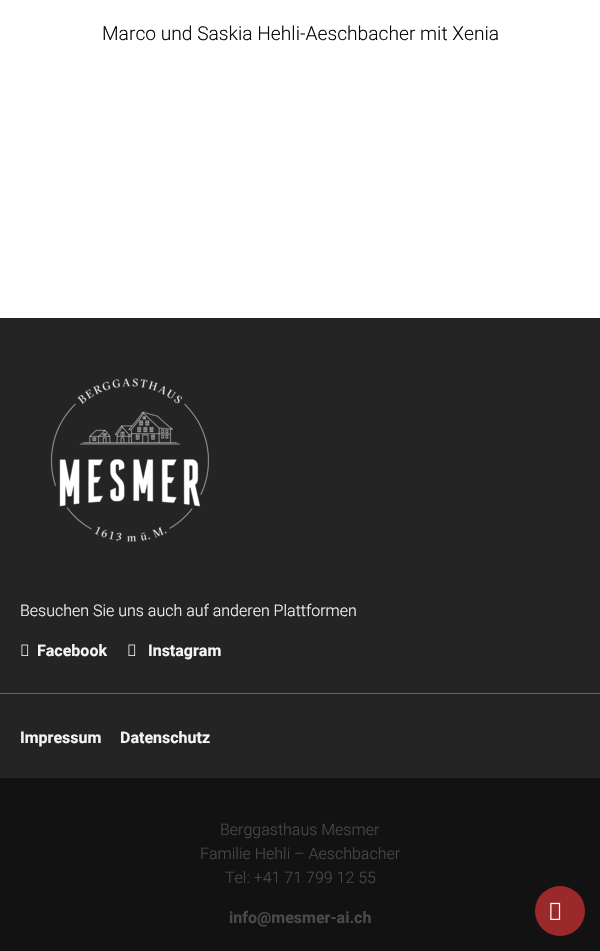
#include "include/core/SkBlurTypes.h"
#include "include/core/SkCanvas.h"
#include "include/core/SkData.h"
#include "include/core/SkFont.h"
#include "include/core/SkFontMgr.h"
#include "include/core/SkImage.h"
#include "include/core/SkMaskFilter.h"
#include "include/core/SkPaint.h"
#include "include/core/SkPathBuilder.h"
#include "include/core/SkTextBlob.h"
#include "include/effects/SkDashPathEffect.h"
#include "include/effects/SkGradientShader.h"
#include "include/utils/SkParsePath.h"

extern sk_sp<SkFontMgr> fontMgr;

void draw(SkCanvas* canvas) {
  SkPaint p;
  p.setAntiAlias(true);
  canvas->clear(SK_ColorWHITE);
  p.setColor(SkColorSetRGB(36, 36, 36));
  canvas->drawRect(SkRect::MakeLTRB(0, 318, 600, 778), p);
  p.setColor(SkColorSetRGB(102, 102, 102));
  canvas->drawRect(SkRect::MakeLTRB(0, 693, 600, 694), p);
  canvas->drawImageRect(SkImages::DeferredFromEncodedData(SkData::MakeFromFileName("images/1.png")), SkRect::MakeLTRB(50, 378, 210, 542), SkSamplingOptions());
  canvas->drawImageRect(SkImages::DeferredFromEncodedData(SkData::MakeFromFileName("images/2.png")), SkRect::MakeLTRB(21, 644, 29, 656), SkSamplingOptions());
  canvas->drawImageRect(SkImages::DeferredFromEncodedData(SkData::MakeFromFileName("images/2.png")), SkRect::MakeLTRB(128, 644, 136, 656), SkSamplingOptions());
  p.setColor(SkColorSetRGB(18, 18, 18));
  canvas->drawRect(SkRect::MakeLTRB(0, 778, 600, 951), p);
  p.setColor(SkColorSetRGB(155, 41, 41));
  canvas->drawCircle(560, 911, 25, p);
  canvas->drawImageRect(SkImages::DeferredFromEncodedData(SkData::MakeFromFileName("images/3.png")), SkRect::MakeLTRB(550, 902, 561, 920), SkSamplingOptions());
  SkFont font1(fontMgr->matchFamilyStyle("Roboto", SkFontStyle(300, SkFontStyle::kNormal_Width, SkFontStyle::kUpright_Slant)), 19.2f);
  font1.setSubpixel(true);
  p.setColor(SkColorSetRGB(10, 10, 10));
  canvas->drawString("Marco und Saskia Hehli-Aeschbacher mit Xenia", 102, 40, font1, p);
  SkFont font2(fontMgr->matchFamilyStyle("Roboto", SkFontStyle(300, SkFontStyle::kNormal_Width, SkFontStyle::kUpright_Slant)), 16);
  font2.setSubpixel(true);
  p.setColor(SkColorSetRGB(245, 245, 245));
  canvas->drawString("Besuchen Sie uns auch auf anderen Plattformen", 20, 616, font2, p);
  SkFont font3(fontMgr->matchFamilyStyle("Roboto", SkFontStyle::Bold()), 16);
  font3.setSubpixel(true);
  canvas->drawString("Facebook", 37, 656, font3, p);
  canvas->drawString("Instagram", 148, 656, font3, p);
  canvas->drawString("Impressum", 20, 743, font3, p);
  canvas->drawString("Datenschutz", 120, 743, font3, p);
  p.setColor(SkColorSetRGB(74, 74, 74));
  canvas->drawString("Berggasthaus Mesmer", 220, 835, font2, p);
  canvas->drawString("Familie Hehli – Aeschbacher", 200, 859, font2, p);
  canvas->drawString("Tel: +41 71 799 12 55", 225, 883, font2, p);
  canvas->drawString("info@mesmer-ai.ch", 229, 923, font3, p);
}
